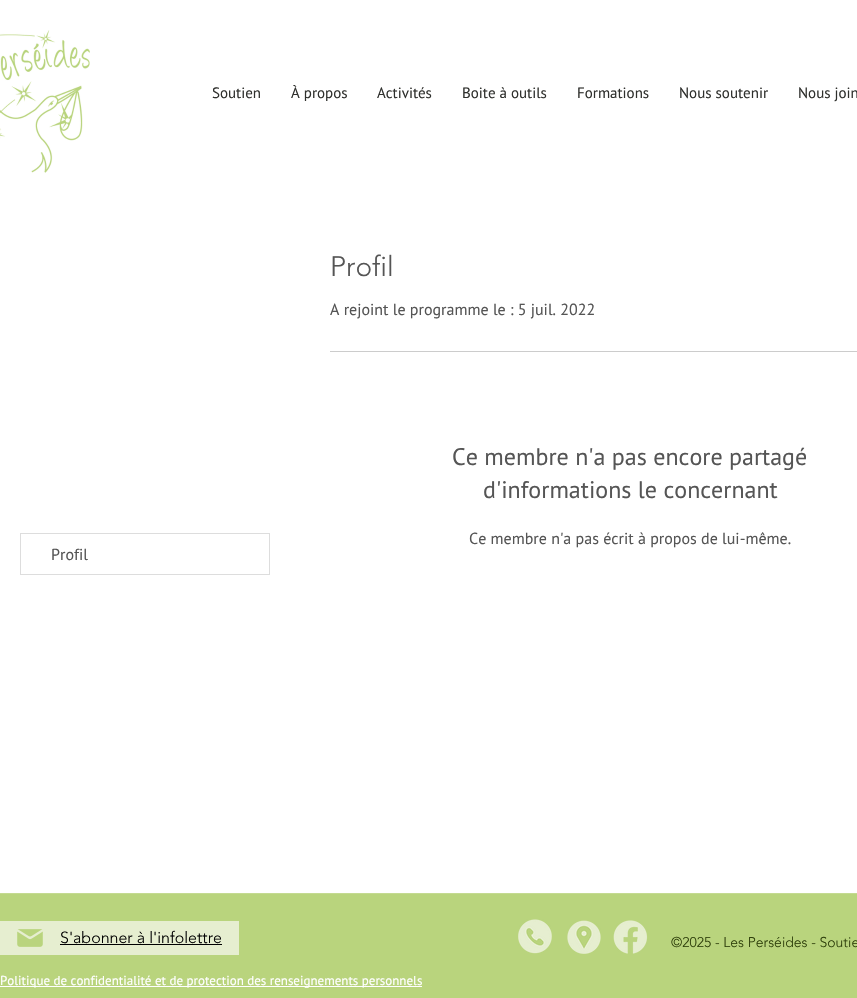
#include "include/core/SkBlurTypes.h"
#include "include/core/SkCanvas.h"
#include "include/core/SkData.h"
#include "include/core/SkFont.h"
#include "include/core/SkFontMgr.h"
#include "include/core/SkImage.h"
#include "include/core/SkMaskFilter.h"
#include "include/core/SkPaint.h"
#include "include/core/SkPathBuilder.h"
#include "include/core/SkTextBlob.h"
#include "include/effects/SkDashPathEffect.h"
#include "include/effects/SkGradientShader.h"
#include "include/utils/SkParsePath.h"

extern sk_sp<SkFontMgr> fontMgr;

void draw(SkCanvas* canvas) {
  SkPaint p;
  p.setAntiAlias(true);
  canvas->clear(SK_ColorWHITE);
  canvas->drawImageRect(SkImages::DeferredFromEncodedData(SkData::MakeFromFileName("images/1.png")), SkRect::MakeLTRB(0, 30, 90, 173), SkSamplingOptions());
  p.setColor(SkColorSetRGB(204, 204, 204));
  canvas->drawRect(SkRect::MakeLTRB(330, 351, 857, 352), p);
  p.setStyle(SkPaint::kStroke_Style);
  p.setStrokeWidth(1);
  p.setColor(SkColorSetRGB(221, 221, 221));
  canvas->drawRect(SkRect::MakeLTRB(20.5f, 533.5f, 269.5f, 574.5f), p);
  p.setStyle(SkPaint::kFill_Style);
  p.setColor(SkColorSetRGB(185, 212, 125));
  canvas->drawRect(SkRect::MakeLTRB(0, 894, 857, 998), p);
  p.setColor(SkColorSetRGB(196, 218, 145));
  canvas->drawRect(SkRect::MakeLTRB(0, 893, 857, 894), p);
  p.setColor(SkColorSetRGB(230, 238, 208));
  canvas->drawRect(SkRect::MakeLTRB(0, 921, 239, 955), p);
  canvas->drawImageRect(SkImages::DeferredFromEncodedData(SkData::MakeFromFileName("images/2.png")), SkRect::MakeLTRB(17, 929, 43, 947), SkSamplingOptions());
  p.setColor(SK_ColorBLACK);
  canvas->drawRect(SkRect::MakeLTRB(60, 944, 222, 945), p);
  canvas->drawImageRect(SkImages::DeferredFromEncodedData(SkData::MakeFromFileName("images/3.png")), SkRect::MakeLTRB(518, 919, 552, 954), SkSamplingOptions());
  canvas->drawImageRect(SkImages::DeferredFromEncodedData(SkData::MakeFromFileName("images/4.png")), SkRect::MakeLTRB(567, 920, 601, 954), SkSamplingOptions());
  canvas->drawImageRect(SkImages::DeferredFromEncodedData(SkData::MakeFromFileName("images/5.png")), SkRect::MakeLTRB(613, 920, 648, 954), SkSamplingOptions());
  p.setColor(SK_ColorWHITE);
  canvas->drawRect(SkRect::MakeLTRB(0, 986, 422, 987), p);
  SkFont font1(fontMgr->matchFamilyStyle("PT Sans", SkFontStyle::Normal()), 15);
  font1.setSubpixel(true);
  p.setColor(SkColorSetRGB(47, 48, 45));
  canvas->drawString("Soutien", 212, 98, font1, p);
  canvas->drawString("À propos", 291, 98, font1, p);
  canvas->drawString("Activités", 377, 98, font1, p);
  canvas->drawString("Boite à outils", 462, 98, font1, p);
  canvas->drawString("Formations", 577, 98, font1, p);
  canvas->drawString("Nous soutenir", 679, 98, font1, p);
  canvas->drawString("Nous join", 798, 98, font1, p);
  SkFont font2(fontMgr->matchFamilyStyle("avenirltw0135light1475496", SkFontStyle(300, SkFontStyle::kNormal_Width, SkFontStyle::kUpright_Slant)), 28);
  font2.setSubpixel(true);
  p.setColor(SkColorSetRGB(85, 85, 85));
  canvas->drawString("Profil", 330, 276, font2, p);
  SkFont font3(fontMgr->matchFamilyStyle("PT Sans", SkFontStyle::Normal()), 16);
  font3.setSubpixel(true);
  canvas->drawString("A rejoint le programme le : 5 juil. 2022", 330, 315, font3, p);
  SkFont font4(fontMgr->matchFamilyStyle("PT Sans", SkFontStyle::Normal()), 24);
  font4.setSubpixel(true);
  canvas->drawString("Ce membre n'a pas encore partagé", 452, 465, font4, p);
  canvas->drawString("d'informations le concernant", 483, 498, font4, p);
  canvas->drawString("Ce membre n'a pas écrit à propos de lui-même.", 469, 544, font3, p);
  canvas->drawString("Profil", 51, 560, font3, p);
  SkFont font5(fontMgr->matchFamilyStyle("avenirltw0135light1475496", SkFontStyle(300, SkFontStyle::kNormal_Width, SkFontStyle::kUpright_Slant)), 16);
  font5.setSubpixel(true);
  p.setColor(SK_ColorBLACK);
  canvas->drawString("S'abonner à l'infolettre", 60, 943, font5, p);
  SkFont font6(fontMgr->matchFamilyStyle("avenirltw0135light1475496", SkFontStyle(300, SkFontStyle::kNormal_Width, SkFontStyle::kUpright_Slant)), 14);
  font6.setSubpixel(true);
  p.setColor(SkColorSetRGB(47, 64, 11));
  canvas->drawString("©2025 - Les Perséides - Soutie", 671, 947, font6, p);
  SkFont font7(fontMgr->matchFamilyStyle("PT Sans", SkFontStyle::Normal()), 13);
  font7.setSubpixel(true);
  p.setColor(SK_ColorWHITE);
  canvas->drawString("Politique de confidentialité et de protection des renseignements personnels", 0, 985, font7, p);
}
